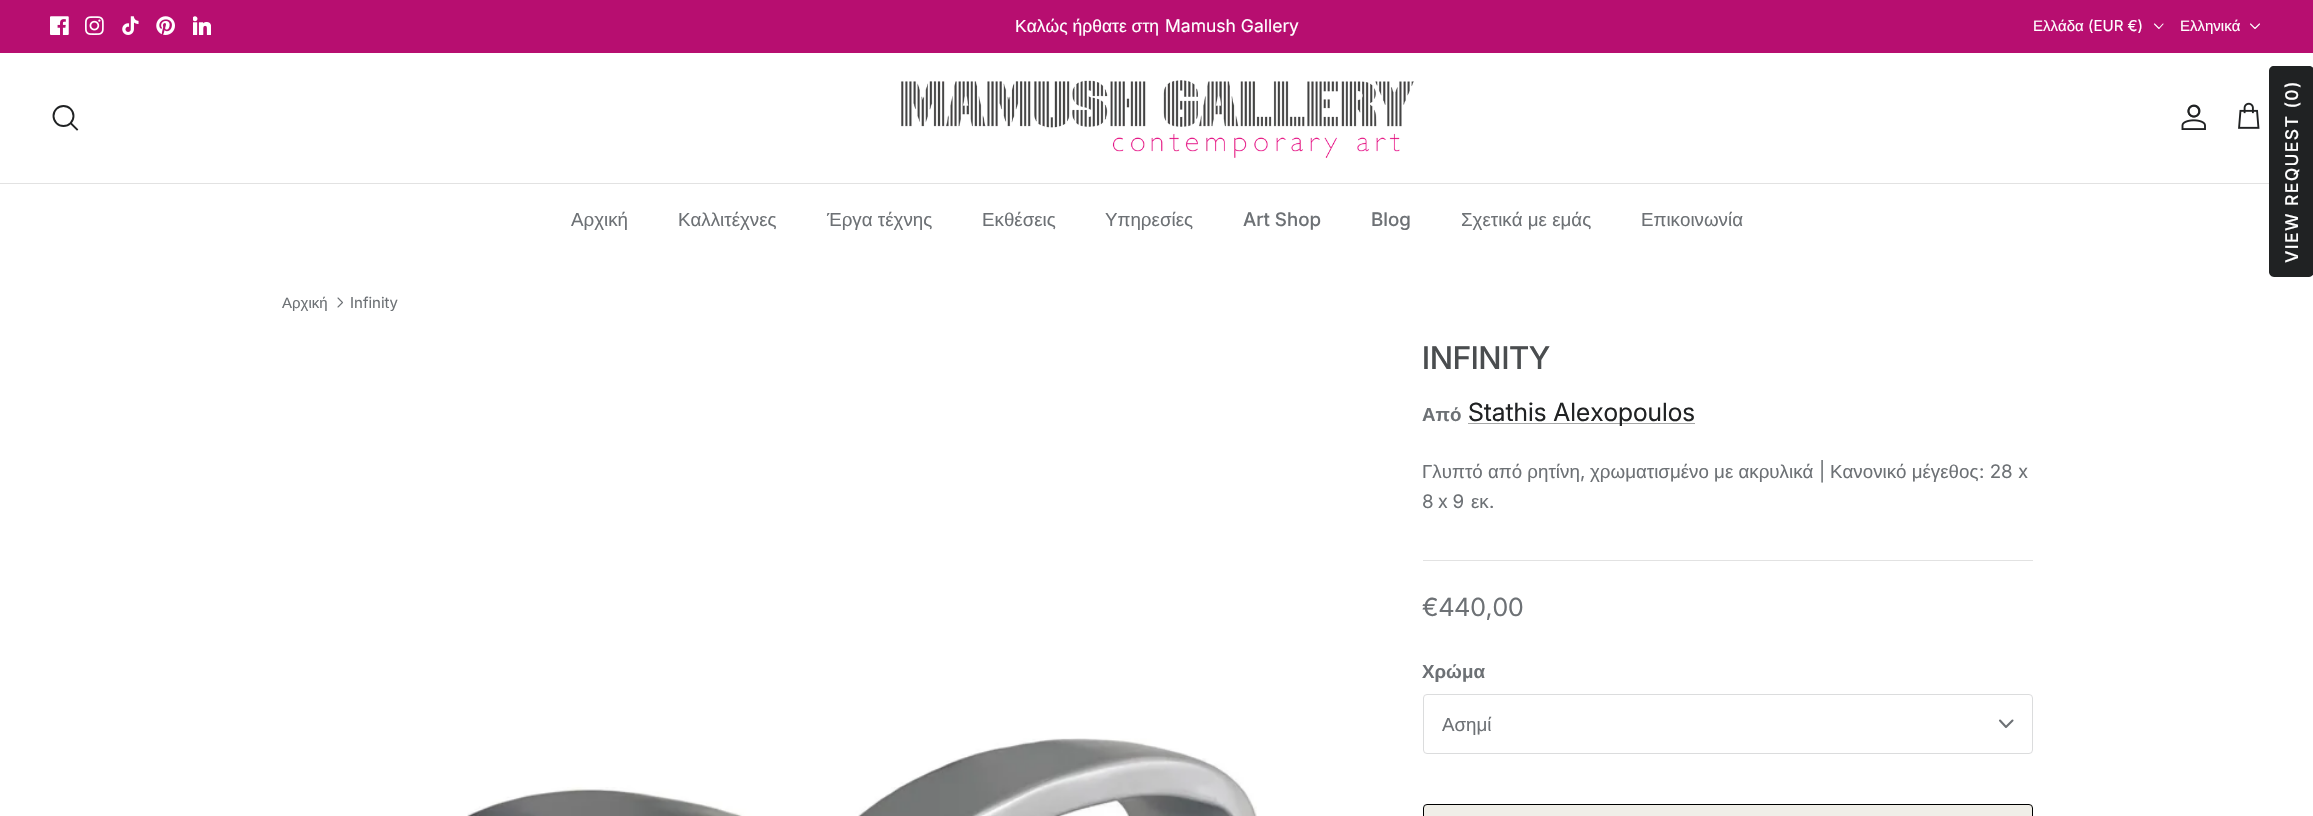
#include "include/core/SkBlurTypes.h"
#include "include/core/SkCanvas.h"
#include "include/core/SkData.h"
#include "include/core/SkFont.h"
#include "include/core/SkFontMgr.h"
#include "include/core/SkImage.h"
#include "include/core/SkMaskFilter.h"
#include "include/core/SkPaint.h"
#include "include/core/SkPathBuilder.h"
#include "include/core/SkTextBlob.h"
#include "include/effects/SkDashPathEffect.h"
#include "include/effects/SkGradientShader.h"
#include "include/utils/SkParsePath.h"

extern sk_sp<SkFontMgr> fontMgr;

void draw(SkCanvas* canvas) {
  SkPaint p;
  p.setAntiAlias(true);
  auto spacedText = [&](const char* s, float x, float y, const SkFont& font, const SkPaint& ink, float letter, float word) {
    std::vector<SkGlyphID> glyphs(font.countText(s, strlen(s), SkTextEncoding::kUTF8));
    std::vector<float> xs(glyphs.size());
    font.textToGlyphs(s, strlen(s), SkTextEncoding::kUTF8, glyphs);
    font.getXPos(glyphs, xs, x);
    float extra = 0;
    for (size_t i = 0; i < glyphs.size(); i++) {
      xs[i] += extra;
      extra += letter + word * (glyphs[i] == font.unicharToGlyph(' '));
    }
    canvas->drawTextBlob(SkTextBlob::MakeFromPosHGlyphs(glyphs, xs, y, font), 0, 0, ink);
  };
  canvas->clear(SK_ColorWHITE);
  p.setColor(SkColorSetRGB(183, 14, 112));
  canvas->drawRect(SkRect::MakeLTRB(0, 0, 2313, 53), p);
  canvas->drawImageRect(SkImages::DeferredFromEncodedData(SkData::MakeFromFileName("images/1.png")), SkRect::MakeLTRB(50, 16, 69, 35), SkSamplingOptions());
  canvas->drawImageRect(SkImages::DeferredFromEncodedData(SkData::MakeFromFileName("images/2.png")), SkRect::MakeLTRB(85, 16, 104, 35), SkSamplingOptions());
  canvas->drawImageRect(SkImages::DeferredFromEncodedData(SkData::MakeFromFileName("images/3.png")), SkRect::MakeLTRB(122, 16, 139, 35), SkSamplingOptions());
  canvas->drawImageRect(SkImages::DeferredFromEncodedData(SkData::MakeFromFileName("images/4.png")), SkRect::MakeLTRB(156, 16, 175, 35), SkSamplingOptions());
  canvas->drawImageRect(SkImages::DeferredFromEncodedData(SkData::MakeFromFileName("images/5.png")), SkRect::MakeLTRB(193, 16, 211, 35), SkSamplingOptions());
  p.setStyle(SkPaint::kStroke_Style);
  p.setStrokeWidth(1.1f);
  p.setStrokeCap(SkPaint::kRound_Cap);
  p.setStrokeJoin(SkPaint::kRound_Join);
  p.setColor(SK_ColorWHITE);
  canvas->drawPath(SkPathBuilder().moveTo(2154.5f, 24).lineTo(2159, 28.5f).lineTo(2163, 24).detach(), p);
  canvas->drawPath(SkPathBuilder().moveTo(2250.5f, 24).lineTo(2255, 28.5f).lineTo(2259.5f, 24).detach(), p);
  p.setStyle(SkPaint::kFill_Style);
  p.setColor(SkColorSetRGB(226, 226, 226));
  canvas->drawRect(SkRect::MakeLTRB(0, 183, 2269, 184), p);
  p.setStyle(SkPaint::kStroke_Style);
  p.setStrokeWidth(1.9f);
  p.setStrokeCap(SkPaint::kButt_Cap);
  p.setStrokeJoin(SkPaint::kMiter_Join);
  p.setColor(SkColorSetRGB(32, 34, 35));
  canvas->drawCircle(63.5f, 116, 10, p);
  p.setStrokeCap(SkPaint::kSquare_Cap);
  canvas->drawPath(SkPathBuilder().moveTo(71, 123.5f).lineTo(77, 129.5f).detach(), p);
  canvas->drawImageRect(SkImages::DeferredFromEncodedData(SkData::MakeFromFileName("images/6.png")), SkRect::MakeLTRB(901, 80, 1414, 158), SkSamplingOptions());
  canvas->drawImageRect(SkImages::DeferredFromEncodedData(SkData::MakeFromFileName("images/7.png")), SkRect::MakeLTRB(2181, 104, 2206, 130), SkSamplingOptions());
  canvas->drawImageRect(SkImages::DeferredFromEncodedData(SkData::MakeFromFileName("images/8.png")), SkRect::MakeLTRB(2238, 102, 2260, 129), SkSamplingOptions());
  p.setStyle(SkPaint::kFill_Style);
  canvas->drawPath(SkPathBuilder().moveTo(2269, 272).lineTo(2269, 71).cubicTo(2269, 68, 2271, 66, 2274, 66).lineTo(2309, 66).cubicTo(2312, 66, 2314, 68, 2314, 71).lineTo(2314, 272).cubicTo(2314, 274, 2312, 277, 2309, 277).lineTo(2274, 277).cubicTo(2271, 277, 2269, 274, 2269, 272).close().detach(), p);
  p.setStyle(SkPaint::kStroke_Style);
  p.setStrokeWidth(1.1f);
  p.setStrokeCap(SkPaint::kRound_Cap);
  p.setStrokeJoin(SkPaint::kRound_Join);
  p.setColor(SkColorSetRGB(109, 113, 117));
  canvas->drawPath(SkPathBuilder().moveTo(338, 307).lineTo(342.5f, 302.5f).lineTo(338, 298).detach(), p);
  p.setStyle(SkPaint::kFill_Style);
  p.setColor(SkColorSetRGB(166, 167, 167));
  canvas->drawRect(SkRect::MakeLTRB(1468, 423, 1695, 424), p);
  p.setColor(SkColorSetRGB(226, 226, 226));
  canvas->drawRect(SkRect::MakeLTRB(1423, 560, 2033, 561), p);
  p.setStyle(SkPaint::kStroke_Style);
  p.setStrokeWidth(1);
  p.setStrokeCap(SkPaint::kButt_Cap);
  p.setStrokeJoin(SkPaint::kMiter_Join);
  p.setColor(SkColorSetRGB(219, 220, 221));
  canvas->drawRoundRect(SkRect::MakeLTRB(1423.5f, 694.5f, 2032.5f, 753.5f), 3.5f, 3.5f, p);
  p.setStrokeWidth(2.1f);
  p.setStrokeCap(SkPaint::kRound_Cap);
  p.setStrokeJoin(SkPaint::kRound_Join);
  p.setColor(SkColorSetRGB(109, 113, 117));
  canvas->drawPath(SkPathBuilder().moveTo(2000, 720.5f).lineTo(2006, 727).lineTo(2012.5f, 720.5f).detach(), p);
  p.setStyle(SkPaint::kFill_Style);
  p.setColor(SkColorSetRGB(240, 238, 232));
  canvas->drawRoundRect(SkRect::MakeLTRB(1423.5f, 804.5f, 2032.5f, 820.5f), 3.5f, 3.5f, p);
  p.setStyle(SkPaint::kStroke_Style);
  p.setStrokeWidth(1);
  p.setStrokeCap(SkPaint::kButt_Cap);
  p.setStrokeJoin(SkPaint::kMiter_Join);
  p.setColor(SK_ColorBLACK);
  canvas->drawRoundRect(SkRect::MakeLTRB(1423.5f, 804.5f, 2032.5f, 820.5f), 3.5f, 3.5f, p);
  canvas->drawImageRect(SkImages::DeferredFromEncodedData(SkData::MakeFromFileName("images/9.png")), SkRect::MakeLTRB(467, 738, 1257, 816), SkSamplingOptions());
  SkFont font1(fontMgr->matchFamilyStyle("Liberation Sans", SkFontStyle::Normal()), 17.5f);
  font1.setSubpixel(true);
  p.setStyle(SkPaint::kFill_Style);
  p.setColor(SK_ColorWHITE);
  canvas->drawString("Καλώς ήρθατε στη", 1015, 32, font1, p);
  SkFont font2(fontMgr->matchFamilyStyle("Inter", SkFontStyle::Normal()), 17.5f);
  font2.setSubpixel(true);
  canvas->drawString("Mamush Gallery", 1165, 32, font2, p);
  SkFont font3(fontMgr->matchFamilyStyle("Liberation Sans", SkFontStyle::Normal()), 15);
  font3.setSubpixel(true);
  canvas->drawString("Ελλάδα", 2033, 31, font3, p);
  SkFont font4(fontMgr->matchFamilyStyle("Inter", SkFontStyle::Normal()), 15);
  font4.setSubpixel(true);
  canvas->drawString("(EUR €)", 2088, 31, font4, p);
  canvas->drawString("Ελληνικά", 2180, 31, font3, p);
  SkFont font5(fontMgr->matchFamilyStyle("Liberation Sans", SkFontStyle::Normal()), 18.75f);
  font5.setSubpixel(true);
  p.setColor(SkColorSetRGB(109, 113, 117));
  canvas->drawString("Αρχική", 571, 226, font5, p);
  canvas->drawString("Καλλιτέχνες", 678, 226, font5, p);
  canvas->drawString("Έργα τέχνης", 827, 226, font5, p);
  canvas->drawString("Εκθέσεις", 982, 226, font5, p);
  canvas->drawString("Υπηρεσίες", 1105, 226, font5, p);
  SkFont font6(fontMgr->matchFamilyStyle("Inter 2", SkFontStyle(500, SkFontStyle::kNormal_Width, SkFontStyle::kUpright_Slant)), 18.75f);
  font6.setSubpixel(true);
  canvas->drawString("Art Shop", 1243, 226, font6, p);
  canvas->drawString("Blog", 1371, 226, font6, p);
  canvas->drawString("Σχετικά με εμάς", 1461, 226, font5, p);
  canvas->drawString("Επικοινωνία", 1641, 226, font5, p);
  SkFont font7(fontMgr->matchFamilyStyle("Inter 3", SkFontStyle(500, SkFontStyle::kNormal_Width, SkFontStyle::kUpright_Slant)), 17.5f);
  font7.setSubpixel(true);
  p.setColor(SK_ColorWHITE);
  canvas->save();
  canvas->rotate(-90, 2298, 263);
  spacedText("VIEW REQUEST (0)", 2298, 263, font7, p, 1.4f, 0);
  canvas->restore();
  p.setColor(SkColorSetRGB(109, 113, 117));
  canvas->drawString("Αρχική", 282, 308, font3, p);
  canvas->drawString("Infinity", 350, 308, font4, p);
  SkFont font8(fontMgr->matchFamilyStyle("Inter", SkFontStyle(500, SkFontStyle::kNormal_Width, SkFontStyle::kUpright_Slant)), 31.25f);
  font8.setSubpixel(true);
  p.setColor(SkColorSetRGB(74, 77, 79));
  canvas->drawString("INFINITY", 1422, 369, font8, p);
  SkFont font9(fontMgr->matchFamilyStyle("Liberation Sans", SkFontStyle::Bold()), 18.75f);
  font9.setSubpixel(true);
  p.setColor(SkColorSetRGB(109, 113, 117));
  canvas->drawString("Από", 1422, 421, font9, p);
  SkFont font10(fontMgr->matchFamilyStyle("Inter 2", SkFontStyle::Normal()), 25);
  font10.setSubpixel(true);
  p.setColor(SkColorSetRGB(32, 34, 35));
  canvas->drawString("Stathis Alexopoulos", 1468, 421, font10, p);
  p.setColor(SkColorSetRGB(109, 113, 117));
  canvas->drawString("Γλυπτό από ρητίνη", 1422, 478, font5, p);
  SkFont font11(fontMgr->matchFamilyStyle("Inter", SkFontStyle::Normal()), 18.75f);
  font11.setSubpixel(true);
  canvas->drawString(",", 1580, 478, font11, p);
  canvas->drawString("χρωματισμένο με ακρυλικά", 1590, 478, font5, p);
  canvas->drawString("|", 1819, 478, font11, p);
  canvas->drawString("Κανονικό μέγεθος", 1830, 478, font5, p);
  canvas->drawString(": 28 x", 1979, 478, font11, p);
  spacedText("8 x 9", 1422, 508, font11, p, 0, -1);
  canvas->drawString("εκ", 1471, 508, font5, p);
  canvas->drawString(".", 1489, 508, font11, p);
  canvas->drawString("€440,00", 1422, 616, font10, p);
  canvas->drawString("Χρώμα", 1422, 678, font9, p);
  canvas->drawString("Ασημί", 1442, 731, font5, p);
}
